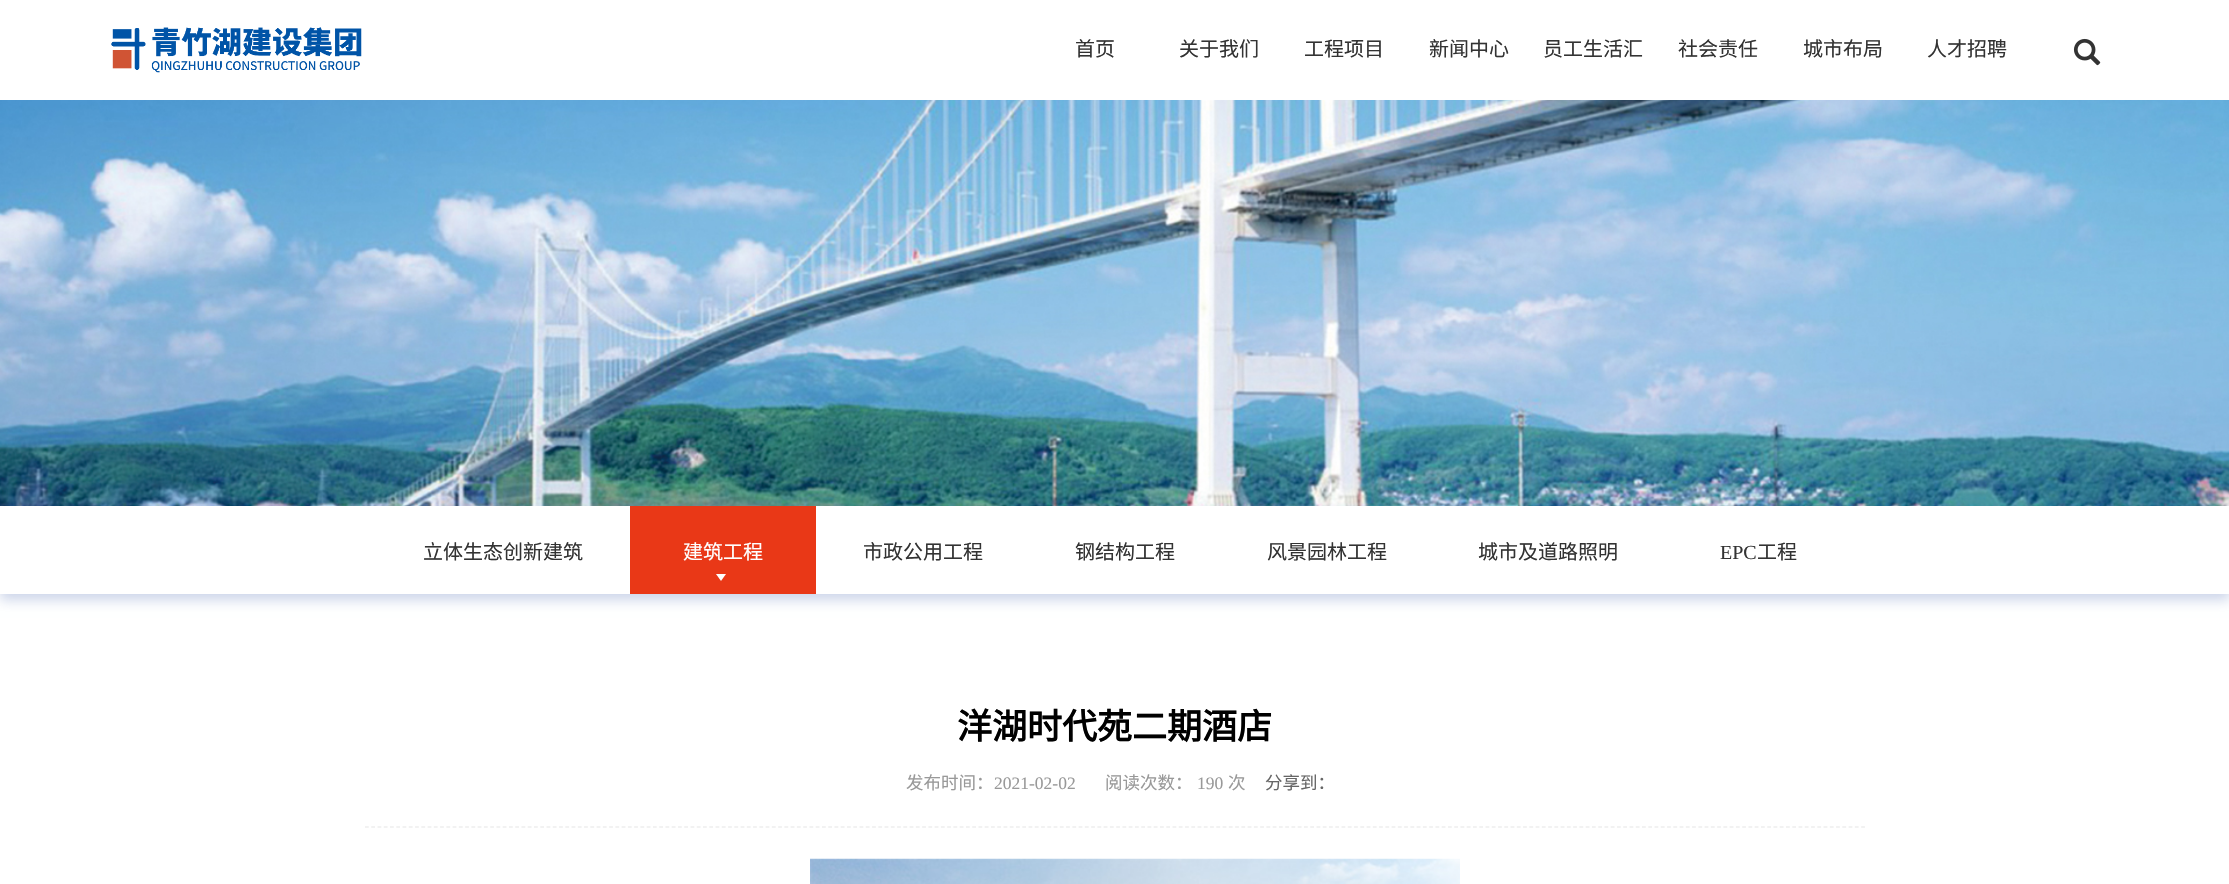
#include "include/core/SkBlurTypes.h"
#include "include/core/SkCanvas.h"
#include "include/core/SkData.h"
#include "include/core/SkFont.h"
#include "include/core/SkFontMgr.h"
#include "include/core/SkImage.h"
#include "include/core/SkMaskFilter.h"
#include "include/core/SkPaint.h"
#include "include/core/SkPathBuilder.h"
#include "include/core/SkTextBlob.h"
#include "include/effects/SkDashPathEffect.h"
#include "include/effects/SkGradientShader.h"
#include "include/utils/SkParsePath.h"

extern sk_sp<SkFontMgr> fontMgr;

void draw(SkCanvas* canvas) {
  SkPaint p;
  p.setAntiAlias(true);
  canvas->clear(SK_ColorWHITE);
  canvas->drawImageRect(SkImages::DeferredFromEncodedData(SkData::MakeFromFileName("images/1.png")), SkRect::MakeLTRB(111, 27, 362, 73), SkSamplingOptions());
  canvas->drawImageRect(SkImages::DeferredFromEncodedData(SkData::MakeFromFileName("images/2.png")), SkRect::MakeLTRB(2073, 38, 2101, 66), SkSamplingOptions());
  canvas->drawImageRect(SkImages::DeferredFromEncodedData(SkData::MakeFromFileName("images/3.png")), SkRect::MakeLTRB(0, 100, 2229, 506), SkSamplingOptions());
  p.setColor(SkColorSetARGB(51, 0, 39, 144));
  p.setMaskFilter(SkMaskFilter::MakeBlur(kNormal_SkBlurStyle, 6));
  canvas->drawRect(SkRect::MakeLTRB(0, 513, 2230, 600), p);
  p.setMaskFilter(nullptr);
  p.setColor(SK_ColorWHITE);
  canvas->drawRect(SkRect::MakeLTRB(0, 506, 2229, 594), p);
  p.setColor(SkColorSetRGB(233, 56, 23));
  canvas->drawRect(SkRect::MakeLTRB(630, 506, 816, 594), p);
  p.setColor(SK_ColorWHITE);
  canvas->drawPath(SkPathBuilder().moveTo(716, 574).lineTo(726, 574).lineTo(721, 581).close().detach(), p);
  p.setStyle(SkPaint::kStroke_Style);
  p.setStrokeWidth(1.2f);
  p.setColor(SkColorSetRGB(230, 230, 230));
  p.setPathEffect(SkDashPathEffect::Make({{3.75f, 2.51f}}, 0));
  canvas->drawPath(SkPathBuilder().moveTo(365, 827).lineTo(1865, 827).detach(), p);
  p.setPathEffect(nullptr);
  canvas->drawImageRect(SkImages::DeferredFromEncodedData(SkData::MakeFromFileName("images/4.png")), SkRect::MakeLTRB(810, 858, 1460, 884), SkSamplingOptions());
  SkFont font1(fontMgr->matchFamilyStyle("Noto Sans CJK SC", SkFontStyle::Normal()), 20);
  font1.setSubpixel(true);
  p.setStyle(SkPaint::kFill_Style);
  p.setColor(SkColorSetRGB(51, 51, 51));
  canvas->drawString("首页", 1075, 56, font1, p);
  canvas->drawString("关于我们", 1179, 56, font1, p);
  canvas->drawString("工程项目", 1304, 56, font1, p);
  canvas->drawString("新闻中心", 1429, 56, font1, p);
  canvas->drawString("员工生活汇", 1543, 56, font1, p);
  canvas->drawString("社会责任", 1678, 56, font1, p);
  canvas->drawString("城市布局", 1803, 56, font1, p);
  canvas->drawString("人才招聘", 1927, 56, font1, p);
  canvas->drawString("立体生态创新建筑", 423, 559, font1, p);
  p.setColor(SK_ColorWHITE);
  canvas->drawString("建筑工程", 683, 559, font1, p);
  p.setColor(SkColorSetRGB(51, 51, 51));
  canvas->drawString("市政公用工程", 863, 559, font1, p);
  canvas->drawString("钢结构工程", 1075, 559, font1, p);
  canvas->drawString("风景园林工程", 1267, 559, font1, p);
  canvas->drawString("城市及道路照明", 1478, 559, font1, p);
  SkFont font2(fontMgr->matchFamilyStyle("Liberation Serif", SkFontStyle::Normal()), 20);
  font2.setSubpixel(true);
  canvas->drawString("EPC", 1720, 559, font2, p);
  canvas->drawString("工程", 1757, 559, font1, p);
  SkFont font3(fontMgr->matchFamilyStyle("Noto Sans CJK SC", SkFontStyle::Bold()), 35);
  font3.setSubpixel(true);
  p.setColor(SK_ColorBLACK);
  canvas->drawString("洋湖时代苑二期酒店", 957, 739, font3, p);
  SkFont font4(fontMgr->matchFamilyStyle("Noto Sans CJK SC", SkFontStyle::Normal()), 17.5f);
  font4.setSubpixel(true);
  p.setColor(SkColorSetRGB(153, 153, 153));
  canvas->drawString("发布时间：", 906, 789, font4, p);
  SkFont font5(fontMgr->matchFamilyStyle("Liberation Serif", SkFontStyle::Normal()), 17.5f);
  font5.setSubpixel(true);
  canvas->drawString("2021-02-02", 994, 789, font5, p);
  canvas->drawString("阅读次数：", 1105, 789, font4, p);
  canvas->drawString("190", 1197, 789, font5, p);
  canvas->drawString("次", 1228, 789, font4, p);
  p.setColor(SkColorSetRGB(102, 102, 102));
  canvas->drawString("分享到：", 1265, 789, font4, p);
}
